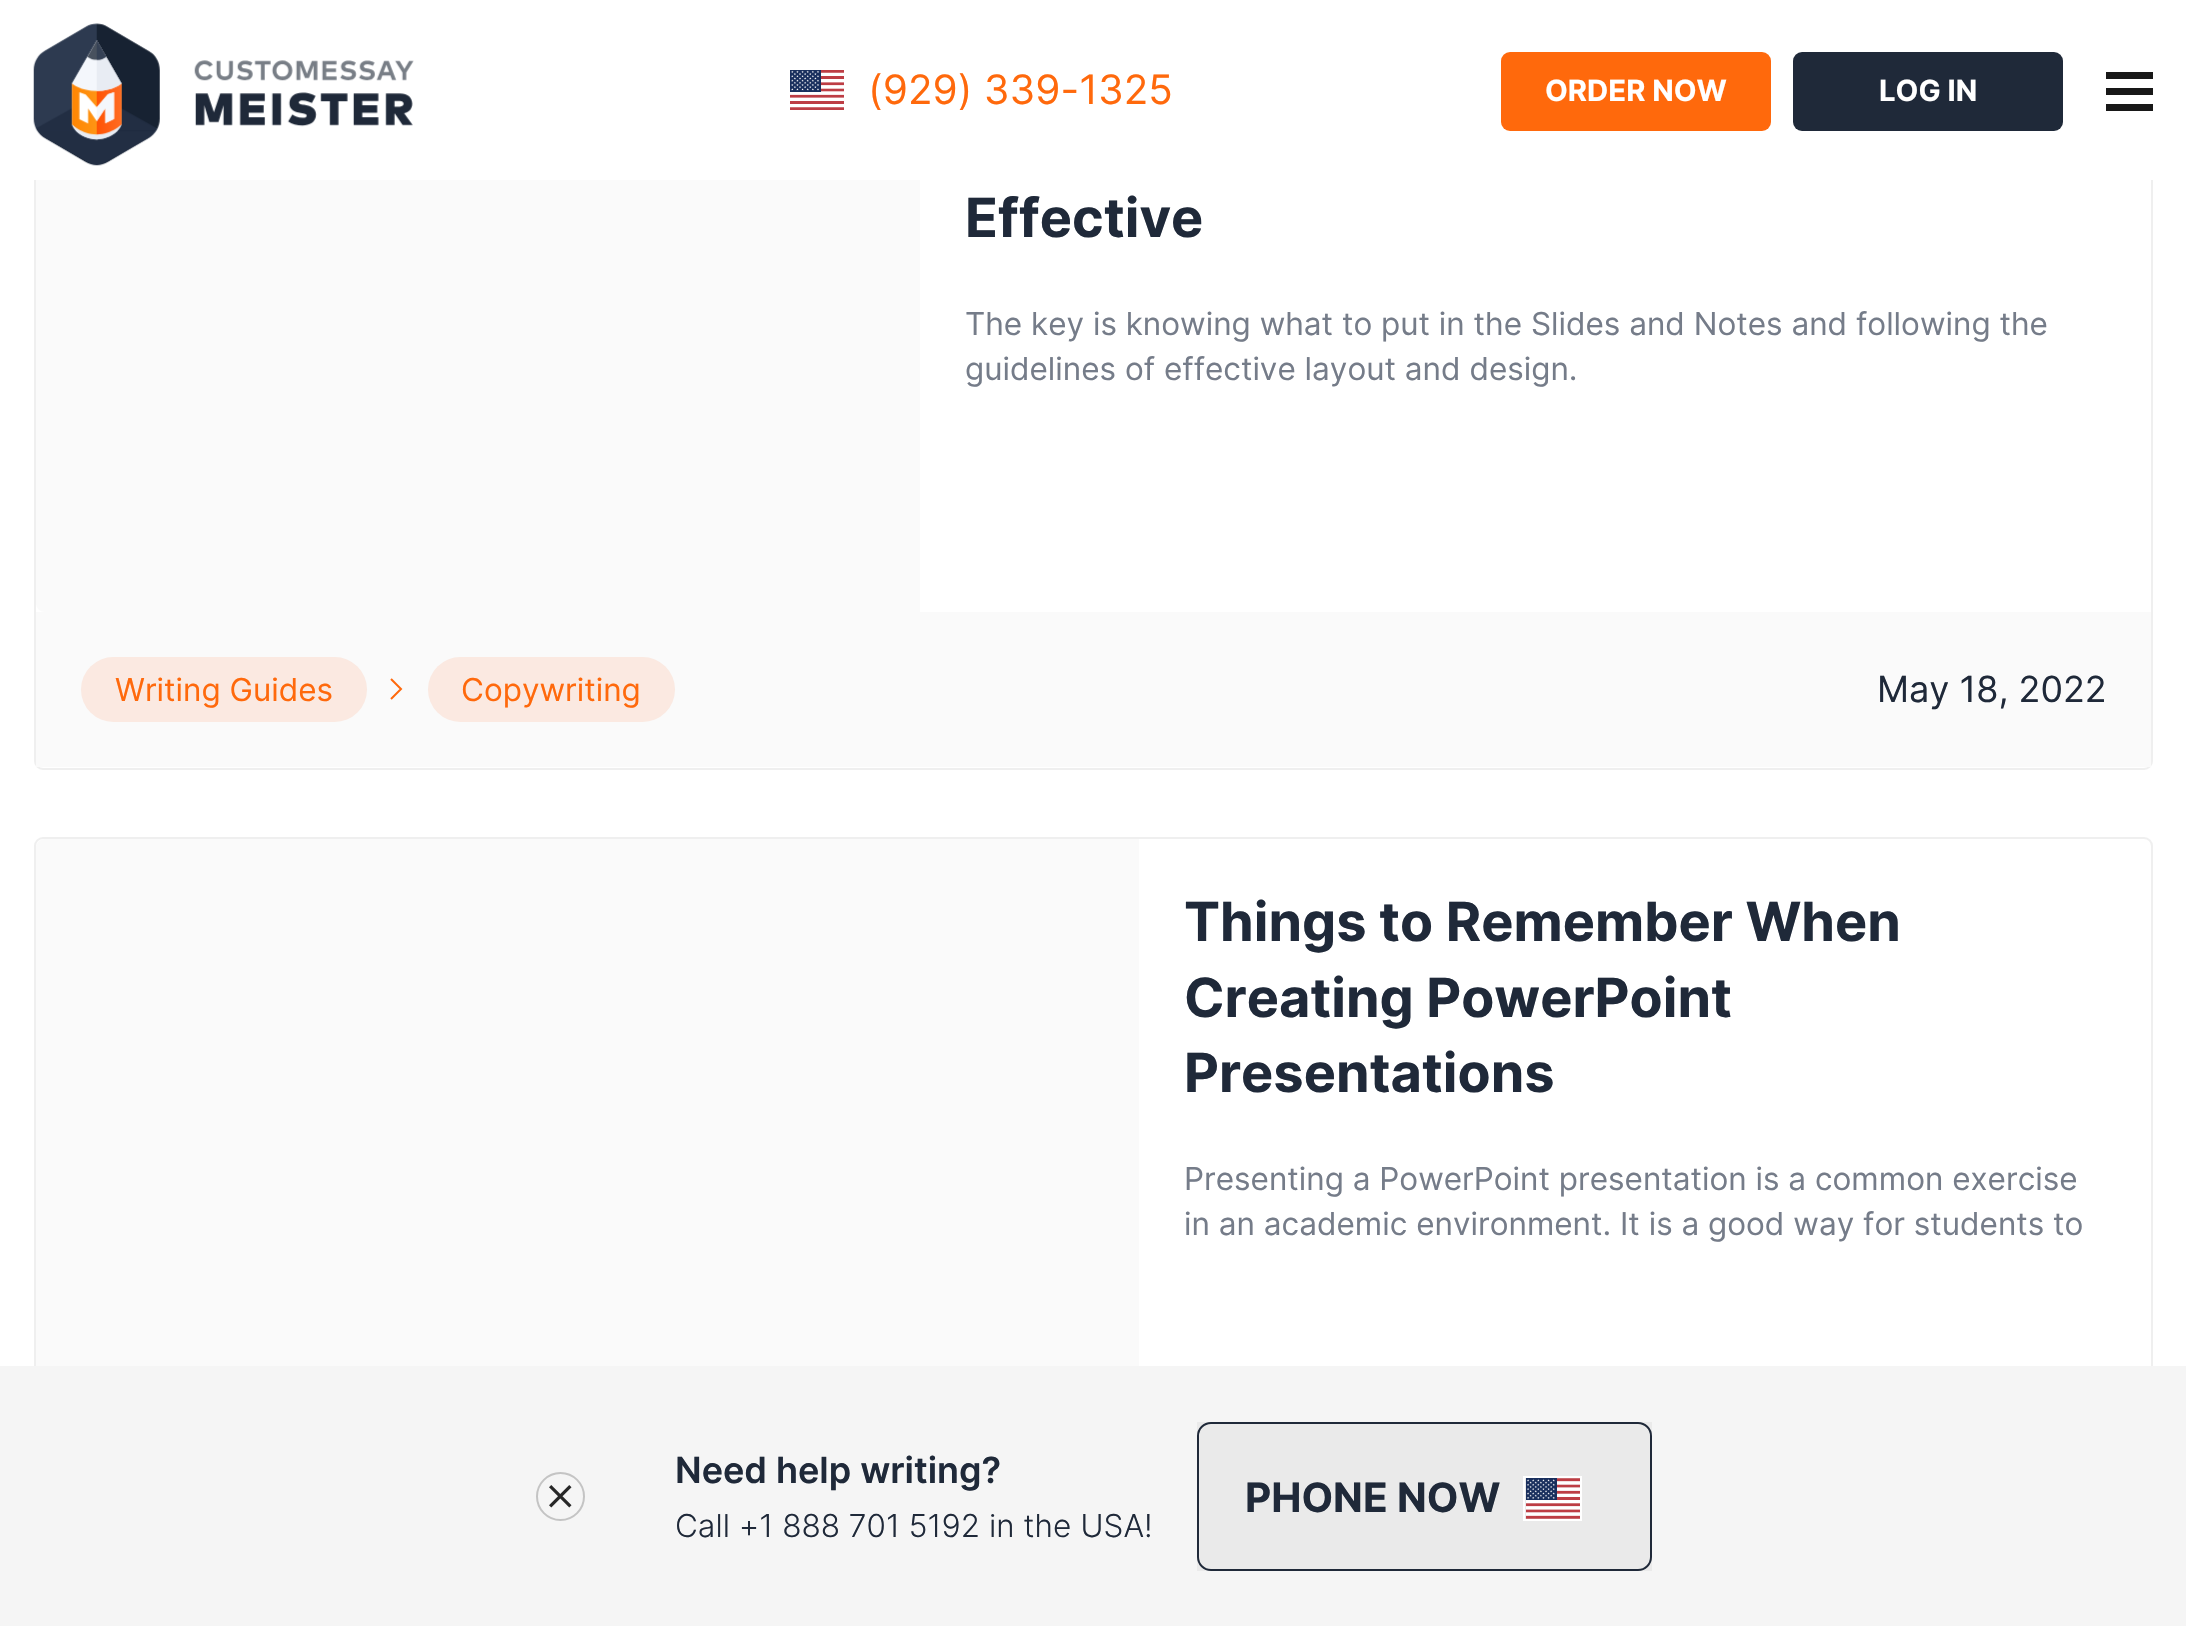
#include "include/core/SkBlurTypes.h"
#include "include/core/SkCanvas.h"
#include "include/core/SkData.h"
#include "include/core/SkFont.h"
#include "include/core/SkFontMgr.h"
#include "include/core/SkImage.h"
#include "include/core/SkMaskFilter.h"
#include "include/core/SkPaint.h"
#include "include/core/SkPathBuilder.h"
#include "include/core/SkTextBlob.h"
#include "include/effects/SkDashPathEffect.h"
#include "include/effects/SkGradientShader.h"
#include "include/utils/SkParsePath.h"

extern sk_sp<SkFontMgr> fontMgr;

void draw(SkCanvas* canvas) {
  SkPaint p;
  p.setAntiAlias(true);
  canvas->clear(SK_ColorWHITE);
  p.setStyle(SkPaint::kStroke_Style);
  p.setStrokeWidth(2);
  p.setColor(SkColorSetRGB(239, 239, 239));
  canvas->drawRoundRect(SkRect::MakeLTRB(35, 60, 2152, 769), 8, 8, p);
  p.setStyle(SkPaint::kFill_Style);
  p.setColor(SkColorSetRGB(250, 250, 250));
  canvas->drawPath(SkPathBuilder().moveTo(45, 61).lineTo(920, 61).lineTo(920, 612).lineTo(45, 612).cubicTo(40, 612, 36, 608, 36, 603).lineTo(36, 70).cubicTo(36, 65, 40, 61, 45, 61).close().detach(), p);
  p.setColor(SkColorSetARGB(247, 255, 255, 255));
  canvas->drawRect(SkRect::MakeLTRB(34, 59, 2153, 180), p);
  canvas->drawImageRect(SkImages::DeferredFromEncodedData(SkData::MakeFromFileName("images/1.png")), SkRect::MakeLTRB(33, 23, 414, 166), SkSamplingOptions());
  p.setColor(SkColorSetRGB(24, 24, 24));
  canvas->drawRect(SkRect::MakeLTRB(2106, 88, 2153, 95), p);
  canvas->drawRect(SkRect::MakeLTRB(2106, 72, 2153, 79), p);
  canvas->drawRect(SkRect::MakeLTRB(2106, 104, 2153, 111), p);
  canvas->drawImageRect(SkImages::DeferredFromEncodedData(SkData::MakeFromFileName("images/2.png")), SkRect::MakeLTRB(790, 70, 844, 110), SkSamplingOptions());
  p.setColor(SkColorSetRGB(255, 105, 12));
  canvas->drawRoundRect(SkRect::MakeLTRB(1501, 52, 1771, 131), 9, 9, p);
  p.setColor(SkColorSetRGB(31, 41, 57));
  canvas->drawRoundRect(SkRect::MakeLTRB(1793, 52, 2063, 131), 9, 9, p);
  p.setColor(SkColorSetRGB(250, 250, 250));
  canvas->drawRect(SkRect::MakeLTRB(36, 612, 2151, 767), p);
  p.setColor(SkColorSetRGB(251, 233, 225));
  canvas->drawRoundRect(SkRect::MakeLTRB(81, 657, 367, 722), 32.5f, 32.5f, p);
  p.setStyle(SkPaint::kStroke_Style);
  p.setColor(SkColorSetRGB(255, 105, 12));
  canvas->drawPath(SkPathBuilder().moveTo(391, 679).lineTo(401, 689).lineTo(391, 699).detach(), p);
  p.setStyle(SkPaint::kFill_Style);
  p.setColor(SkColorSetRGB(251, 233, 225));
  canvas->drawRoundRect(SkRect::MakeLTRB(428, 657, 675, 722), 32.5f, 32.5f, p);
  p.setStyle(SkPaint::kStroke_Style);
  p.setColor(SkColorSetRGB(239, 239, 239));
  canvas->drawRoundRect(SkRect::MakeLTRB(35, 838, 2152, 1549), 8, 8, p);
  p.setStyle(SkPaint::kFill_Style);
  p.setColor(SkColorSetRGB(250, 250, 250));
  canvas->drawPath(SkPathBuilder().moveTo(45, 839).lineTo(1139, 839).lineTo(1139, 1391).lineTo(45, 1391).cubicTo(40, 1391, 36, 1387, 36, 1382).lineTo(36, 848).cubicTo(36, 843, 40, 839, 45, 839).close().detach(), p);
  p.setColor(SkColorSetRGB(245, 245, 245));
  canvas->drawRect(SkRect::MakeLTRB(0, 1366, 2186, 1626), p);
  p.setStyle(SkPaint::kStroke_Style);
  p.setColor(SkColorSetRGB(196, 196, 196));
  canvas->drawCircle(560.5f, 1496.5f, 23.5f, p);
  canvas->drawImageRect(SkImages::DeferredFromEncodedData(SkData::MakeFromFileName("images/3.png")), SkRect::MakeLTRB(549, 1485, 572, 1508), SkSamplingOptions());
  p.setStyle(SkPaint::kFill_Style);
  p.setColor(SkColorSetRGB(234, 234, 234));
  canvas->drawRect(SkRect::MakeLTRB(1197, 1422, 1652, 1571), p);
  p.setStyle(SkPaint::kStroke_Style);
  p.setColor(SkColorSetRGB(31, 41, 57));
  canvas->drawRoundRect(SkRect::MakeLTRB(1198, 1423, 1651, 1570), 13, 13, p);
  canvas->drawImageRect(SkImages::DeferredFromEncodedData(SkData::MakeFromFileName("images/4.png")), SkRect::MakeLTRB(1526, 1478, 1580, 1519), SkSamplingOptions());
  p.setColor(SK_ColorWHITE);
  canvas->drawRect(SkRect::MakeLTRB(1524, 1477, 1581, 1520), p);
  SkFont font1(fontMgr->matchFamilyStyle("Inter", SkFontStyle::Normal()), 40.5f);
  font1.setSubpixel(true);
  p.setStyle(SkPaint::kFill_Style);
  p.setColor(SkColorSetRGB(255, 105, 12));
  canvas->drawString("(929) 339-1325", 868, 104, font1, p);
  SkFont font2(fontMgr->matchFamilyStyle("Inter", SkFontStyle::Bold()), 29.25f);
  font2.setSubpixel(true);
  p.setColor(SK_ColorWHITE);
  canvas->drawString("ORDER NOW", 1545, 101, font2, p);
  canvas->drawString("LOG IN", 1879, 101, font2, p);
  SkFont font3(fontMgr->matchFamilyStyle("Inter", SkFontStyle::Bold()), 54);
  font3.setSubpixel(true);
  p.setColor(SkColorSetRGB(31, 41, 57));
  canvas->drawString("Effective", 965, 237, font3, p);
  SkFont font4(fontMgr->matchFamilyStyle("Inter", SkFontStyle::Normal()), 31.5f);
  font4.setSubpixel(true);
  p.setColor(SkColorSetRGB(117, 124, 137));
  canvas->drawString("The key is knowing what to put in the Slides and Notes and following the", 965, 335, font4, p);
  canvas->drawString("guidelines of effective layout and design.", 965, 380, font4, p);
  p.setColor(SkColorSetRGB(255, 105, 12));
  canvas->drawString("Writing Guides", 115, 701, font4, p);
  canvas->drawString("Copywriting", 461, 701, font4, p);
  SkFont font5(fontMgr->matchFamilyStyle("Inter", SkFontStyle::Normal()), 36);
  font5.setSubpixel(true);
  p.setColor(SkColorSetRGB(31, 41, 57));
  canvas->drawString("May 18, 2022", 1877, 702, font5, p);
  canvas->drawString("Things to Remember When", 1184, 941, font3, p);
  canvas->drawString("Creating PowerPoint", 1184, 1017, font3, p);
  canvas->drawString("Presentations", 1184, 1092, font3, p);
  p.setColor(SkColorSetRGB(117, 124, 137));
  canvas->drawString("Presenting a PowerPoint presentation is a common exercise", 1184, 1190, font4, p);
  canvas->drawString("in an academic environment. It is a good way for students to", 1184, 1235, font4, p);
  SkFont font6(fontMgr->matchFamilyStyle("Inter", SkFontStyle(600, SkFontStyle::kNormal_Width, SkFontStyle::kUpright_Slant)), 36);
  font6.setSubpixel(true);
  p.setColor(SkColorSetRGB(31, 41, 57));
  canvas->drawString("Need help writing?", 675, 1483, font6, p);
  SkFont font7(fontMgr->matchFamilyStyle("Inter", SkFontStyle(300, SkFontStyle::kNormal_Width, SkFontStyle::kUpright_Slant)), 31.5f);
  font7.setSubpixel(true);
  canvas->drawString("Call +1 888 701 5192 in the USA!", 675, 1537, font7, p);
  SkFont font8(fontMgr->matchFamilyStyle("Inter", SkFontStyle::Bold()), 40.5f);
  font8.setSubpixel(true);
  canvas->drawString("PHONE NOW", 1245, 1512, font8, p);
}
